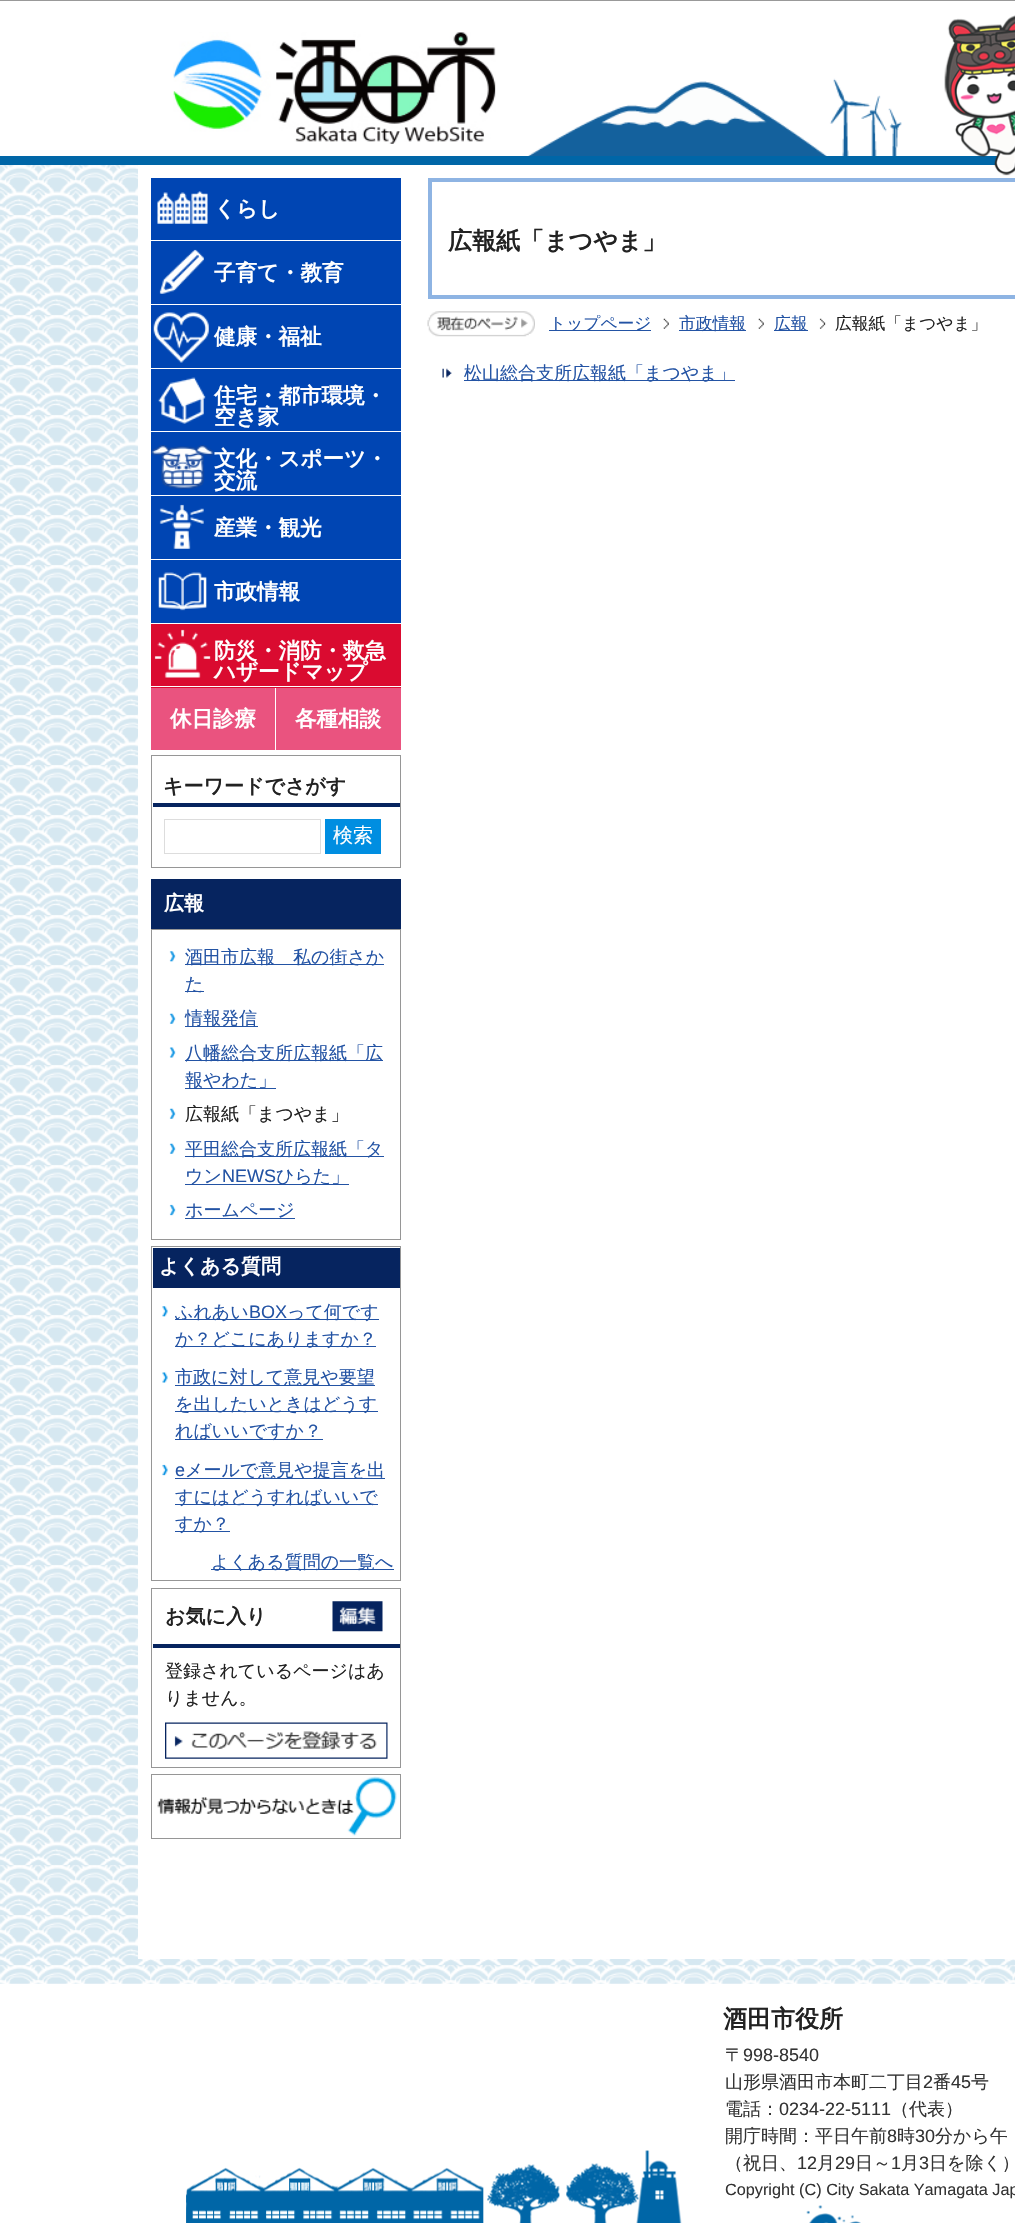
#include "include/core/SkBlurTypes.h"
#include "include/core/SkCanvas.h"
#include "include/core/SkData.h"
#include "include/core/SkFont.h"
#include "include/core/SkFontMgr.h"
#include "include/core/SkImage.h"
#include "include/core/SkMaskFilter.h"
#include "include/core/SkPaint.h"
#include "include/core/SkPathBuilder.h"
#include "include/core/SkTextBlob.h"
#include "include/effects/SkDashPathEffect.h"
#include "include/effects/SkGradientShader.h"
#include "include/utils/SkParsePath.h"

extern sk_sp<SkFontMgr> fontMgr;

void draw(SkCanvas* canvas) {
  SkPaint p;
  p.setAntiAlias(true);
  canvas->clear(SK_ColorWHITE);
  p.setColor(SkColorSetRGB(153, 153, 153));
  canvas->drawRect(SkRect::MakeLTRB(0, 0, 1015, 1), p);
  canvas->drawImageRect(SkImages::DeferredFromEncodedData(SkData::MakeFromFileName("images/1.png")), SkRect::MakeLTRB(173, 32, 496, 144), SkSamplingOptions());
  canvas->drawImageRect(SkImages::DeferredFromEncodedData(SkData::MakeFromFileName("images/2.png")), SkRect::MakeLTRB(528, 78, 902, 156), SkSamplingOptions());
  p.setColor(SkColorSetRGB(0, 102, 167));
  canvas->drawRect(SkRect::MakeLTRB(0, 156, 997, 165), p);
  canvas->drawImageRect(SkImages::DeferredFromEncodedData(SkData::MakeFromFileName("images/4.png")), SkRect::MakeLTRB(0, 165, 1015, 1984), SkSamplingOptions());
  p.setColor(SK_ColorWHITE);
  canvas->drawRect(SkRect::MakeLTRB(138, 165, 1015, 1959), p);
  canvas->drawImageRect(SkImages::DeferredFromEncodedData(SkData::MakeFromFileName("images/3.png")), SkRect::MakeLTRB(944, 15, 1015, 176), SkSamplingOptions());
  p.setColor(SkColorSetRGB(0, 69, 179));
  canvas->drawRect(SkRect::MakeLTRB(151, 178, 401, 240), p);
  canvas->drawImageRect(SkImages::DeferredFromEncodedData(SkData::MakeFromFileName("images/5.png")), SkRect::MakeLTRB(157, 191, 208, 224), SkSamplingOptions());
  canvas->drawRect(SkRect::MakeLTRB(151, 241, 401, 304), p);
  canvas->drawImageRect(SkImages::DeferredFromEncodedData(SkData::MakeFromFileName("images/6.png")), SkRect::MakeLTRB(159, 249, 204, 294), SkSamplingOptions());
  canvas->drawRect(SkRect::MakeLTRB(151, 305, 401, 368), p);
  canvas->drawImageRect(SkImages::DeferredFromEncodedData(SkData::MakeFromFileName("images/7.png")), SkRect::MakeLTRB(153, 312, 209, 363), SkSamplingOptions());
  canvas->drawRect(SkRect::MakeLTRB(151, 369, 401, 495), p);
  p.setColor(SK_ColorWHITE);
  canvas->drawRect(SkRect::MakeLTRB(151, 431, 401, 432), p);
  canvas->drawImageRect(SkImages::DeferredFromEncodedData(SkData::MakeFromFileName("images/8.png")), SkRect::MakeLTRB(158, 377, 206, 424), SkSamplingOptions());
  canvas->drawImageRect(SkImages::DeferredFromEncodedData(SkData::MakeFromFileName("images/9.png")), SkRect::MakeLTRB(151, 445, 214, 489), SkSamplingOptions());
  p.setColor(SkColorSetRGB(0, 69, 179));
  canvas->drawRect(SkRect::MakeLTRB(151, 496, 401, 559), p);
  canvas->drawImageRect(SkImages::DeferredFromEncodedData(SkData::MakeFromFileName("images/10.png")), SkRect::MakeLTRB(159, 504, 204, 549), SkSamplingOptions());
  canvas->drawRect(SkRect::MakeLTRB(151, 560, 401, 623), p);
  canvas->drawImageRect(SkImages::DeferredFromEncodedData(SkData::MakeFromFileName("images/11.png")), SkRect::MakeLTRB(158, 572, 207, 611), SkSamplingOptions());
  p.setColor(SkColorSetRGB(218, 11, 48));
  canvas->drawRect(SkRect::MakeLTRB(151, 624, 401, 688), p);
  p.setColor(SK_ColorWHITE);
  canvas->drawRect(SkRect::MakeLTRB(151, 686, 401, 687), p);
  canvas->drawImageRect(SkImages::DeferredFromEncodedData(SkData::MakeFromFileName("images/12.png")), SkRect::MakeLTRB(154, 629, 211, 678), SkSamplingOptions());
  p.setColor(SkColorSetRGB(234, 83, 127));
  canvas->drawRect(SkRect::MakeLTRB(151, 688, 401, 750), p);
  p.setColor(SK_ColorWHITE);
  canvas->drawRect(SkRect::MakeLTRB(275, 688, 276, 750), p);
  p.setStyle(SkPaint::kStroke_Style);
  p.setStrokeWidth(1);
  p.setColor(SkColorSetRGB(150, 150, 150));
  canvas->drawRect(SkRect::MakeLTRB(151.5f, 755.5f, 400.5f, 867.5f), p);
  p.setStyle(SkPaint::kFill_Style);
  p.setColor(SkColorSetRGB(6, 36, 95));
  canvas->drawRect(SkRect::MakeLTRB(153, 803, 400, 807), p);
  p.setStyle(SkPaint::kStroke_Style);
  p.setColor(SkColorSetRGB(221, 221, 221));
  canvas->drawRect(SkRect::MakeLTRB(164.5f, 819.5f, 320.5f, 853.5f), p);
  p.setStyle(SkPaint::kFill_Style);
  p.setColor(SkColorSetRGB(0, 142, 225));
  canvas->drawRect(SkRect::MakeLTRB(325, 819, 381, 854), p);
  p.setStyle(SkPaint::kStroke_Style);
  p.setStrokeWidth(4);
  p.setColor(SkColorSetRGB(142, 180, 227));
  canvas->drawRect(SkRect::MakeLTRB(430, 180, 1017, 297), p);
  canvas->drawImageRect(SkImages::DeferredFromEncodedData(SkData::MakeFromFileName("images/13.png")), SkRect::MakeLTRB(427, 311, 535, 337), SkSamplingOptions());
  canvas->drawImageRect(SkImages::DeferredFromEncodedData(SkData::MakeFromFileName("images/14.png")), SkRect::MakeLTRB(663, 318, 669, 329), SkSamplingOptions());
  p.setStyle(SkPaint::kFill_Style);
  p.setColor(SkColorSetRGB(35, 83, 164));
  canvas->drawRect(SkRect::MakeLTRB(549, 330, 651, 331), p);
  canvas->drawImageRect(SkImages::DeferredFromEncodedData(SkData::MakeFromFileName("images/14.png")), SkRect::MakeLTRB(758, 318, 764, 329), SkSamplingOptions());
  canvas->drawRect(SkRect::MakeLTRB(679, 330, 746, 331), p);
  canvas->drawImageRect(SkImages::DeferredFromEncodedData(SkData::MakeFromFileName("images/15.png")), SkRect::MakeLTRB(819, 318, 826, 329), SkSamplingOptions());
  canvas->drawRect(SkRect::MakeLTRB(774, 330, 808, 331), p);
  canvas->drawImageRect(SkImages::DeferredFromEncodedData(SkData::MakeFromFileName("images/16.png")), SkRect::MakeLTRB(442, 368, 452, 378), SkSamplingOptions());
  canvas->drawRect(SkRect::MakeLTRB(464, 380, 735, 381), p);
  p.setColor(SkColorSetRGB(6, 36, 95));
  canvas->drawRect(SkRect::MakeLTRB(151, 879, 401, 929), p);
  p.setStyle(SkPaint::kStroke_Style);
  p.setStrokeWidth(1);
  p.setColor(SkColorSetRGB(150, 150, 150));
  canvas->drawRect(SkRect::MakeLTRB(151.5f, 929.5f, 400.5f, 1239.5f), p);
  canvas->drawImageRect(SkImages::DeferredFromEncodedData(SkData::MakeFromFileName("images/17.png")), SkRect::MakeLTRB(169, 951, 176, 962), SkSamplingOptions());
  p.setStyle(SkPaint::kFill_Style);
  p.setColor(SkColorSetRGB(35, 83, 164));
  canvas->drawRect(SkRect::MakeLTRB(185, 964, 384, 965), p);
  canvas->drawRect(SkRect::MakeLTRB(185, 991, 204, 992), p);
  canvas->drawImageRect(SkImages::DeferredFromEncodedData(SkData::MakeFromFileName("images/18.png")), SkRect::MakeLTRB(169, 1013, 176, 1024), SkSamplingOptions());
  canvas->drawRect(SkRect::MakeLTRB(185, 1026, 258, 1027), p);
  canvas->drawImageRect(SkImages::DeferredFromEncodedData(SkData::MakeFromFileName("images/19.png")), SkRect::MakeLTRB(169, 1047, 176, 1058), SkSamplingOptions());
  canvas->drawRect(SkRect::MakeLTRB(185, 1060, 383, 1061), p);
  canvas->drawRect(SkRect::MakeLTRB(185, 1088, 276, 1089), p);
  canvas->drawImageRect(SkImages::DeferredFromEncodedData(SkData::MakeFromFileName("images/18.png")), SkRect::MakeLTRB(169, 1108, 176, 1119), SkSamplingOptions());
  canvas->drawImageRect(SkImages::DeferredFromEncodedData(SkData::MakeFromFileName("images/18.png")), SkRect::MakeLTRB(169, 1143, 176, 1154), SkSamplingOptions());
  canvas->drawRect(SkRect::MakeLTRB(185, 1156, 384, 1157), p);
  canvas->drawRect(SkRect::MakeLTRB(185, 1184, 349, 1185), p);
  canvas->drawImageRect(SkImages::DeferredFromEncodedData(SkData::MakeFromFileName("images/20.png")), SkRect::MakeLTRB(169, 1204, 176, 1216), SkSamplingOptions());
  canvas->drawRect(SkRect::MakeLTRB(185, 1218, 295, 1219), p);
  p.setStyle(SkPaint::kStroke_Style);
  p.setColor(SkColorSetRGB(150, 150, 150));
  canvas->drawRect(SkRect::MakeLTRB(151.5f, 1246.5f, 400.5f, 1580.5f), p);
  p.setStyle(SkPaint::kFill_Style);
  p.setColor(SkColorSetRGB(6, 36, 95));
  canvas->drawRect(SkRect::MakeLTRB(153, 1248, 400, 1288), p);
  canvas->drawImageRect(SkImages::DeferredFromEncodedData(SkData::MakeFromFileName("images/21.png")), SkRect::MakeLTRB(162, 1306, 168, 1317), SkSamplingOptions());
  p.setColor(SkColorSetRGB(35, 83, 164));
  canvas->drawRect(SkRect::MakeLTRB(175, 1319, 379, 1320), p);
  canvas->drawRect(SkRect::MakeLTRB(175, 1346, 376, 1347), p);
  canvas->drawImageRect(SkImages::DeferredFromEncodedData(SkData::MakeFromFileName("images/22.png")), SkRect::MakeLTRB(162, 1372, 168, 1383), SkSamplingOptions());
  canvas->drawRect(SkRect::MakeLTRB(175, 1385, 375, 1386), p);
  canvas->drawRect(SkRect::MakeLTRB(175, 1411, 378, 1412), p);
  canvas->drawRect(SkRect::MakeLTRB(175, 1439, 323, 1440), p);
  canvas->drawImageRect(SkImages::DeferredFromEncodedData(SkData::MakeFromFileName("images/23.png")), SkRect::MakeLTRB(162, 1464, 168, 1476), SkSamplingOptions());
  canvas->drawRect(SkRect::MakeLTRB(175, 1478, 385, 1479), p);
  canvas->drawRect(SkRect::MakeLTRB(175, 1504, 378, 1505), p);
  canvas->drawRect(SkRect::MakeLTRB(175, 1531, 230, 1532), p);
  canvas->drawRect(SkRect::MakeLTRB(211, 1569, 394, 1570), p);
  p.setStyle(SkPaint::kStroke_Style);
  p.setColor(SkColorSetRGB(150, 150, 150));
  canvas->drawRect(SkRect::MakeLTRB(151.5f, 1588.5f, 400.5f, 1767.5f), p);
  p.setStyle(SkPaint::kFill_Style);
  p.setColor(SkColorSetRGB(6, 36, 95));
  canvas->drawRect(SkRect::MakeLTRB(153, 1644, 400, 1648), p);
  canvas->drawImageRect(SkImages::DeferredFromEncodedData(SkData::MakeFromFileName("images/24.png")), SkRect::MakeLTRB(332, 1601, 383, 1632), SkSamplingOptions());
  canvas->drawImageRect(SkImages::DeferredFromEncodedData(SkData::MakeFromFileName("images/25.png")), SkRect::MakeLTRB(165, 1722, 388, 1759), SkSamplingOptions());
  p.setStyle(SkPaint::kStroke_Style);
  p.setColor(SkColorSetRGB(150, 150, 150));
  canvas->drawRect(SkRect::MakeLTRB(151.5f, 1774.5f, 400.5f, 1838.5f), p);
  canvas->drawImageRect(SkImages::DeferredFromEncodedData(SkData::MakeFromFileName("images/26.png")), SkRect::MakeLTRB(157, 1776, 397, 1836), SkSamplingOptions());
  canvas->drawImageRect(SkImages::DeferredFromEncodedData(SkData::MakeFromFileName("images/27.png")), SkRect::MakeLTRB(186, 2150, 861, 2223), SkSamplingOptions());
  SkFont font1(fontMgr->matchFamilyStyle("WenQuanYi Zen Hei", SkFontStyle::Bold()), 21.5f);
  font1.setSubpixel(true);
  p.setStyle(SkPaint::kFill_Style);
  p.setColor(SK_ColorWHITE);
  canvas->drawString("くらし", 214, 216, font1, p);
  canvas->drawString("子育て・教育", 214, 280, font1, p);
  canvas->drawString("健康・福祉", 214, 344, font1, p);
  canvas->drawString("住宅・都市環境・", 214, 403, font1, p);
  canvas->drawString("空き家", 214, 424, font1, p);
  canvas->drawString("文化・スポーツ・", 214, 466, font1, p);
  canvas->drawString("交流", 214, 488, font1, p);
  canvas->drawString("産業・観光", 214, 535, font1, p);
  canvas->drawString("市政情報", 214, 599, font1, p);
  canvas->drawString("防災・消防・救急", 214, 658, font1, p);
  canvas->drawString("ハザードマップ", 214, 679, font1, p);
  canvas->drawString("休日診療", 170, 726, font1, p);
  canvas->drawString("各種相談", 295, 726, font1, p);
  SkFont font2(fontMgr->matchFamilyStyle("WenQuanYi Zen Hei", SkFontStyle::Bold()), 20);
  font2.setSubpixel(true);
  p.setColor(SkColorSetRGB(34, 34, 34));
  canvas->drawString("キーワードでさがす", 163, 793, font2, p);
  SkFont font3(fontMgr->matchFamilyStyle("WenQuanYi Zen Hei", SkFontStyle(500, SkFontStyle::kNormal_Width, SkFontStyle::kUpright_Slant)), 20);
  font3.setSubpixel(true);
  p.setColor(SK_ColorWHITE);
  canvas->drawString("検索", 333, 842, font3, p);
  SkFont font4(fontMgr->matchFamilyStyle("WenQuanYi Zen Hei", SkFontStyle::Bold()), 24);
  font4.setSubpixel(true);
  p.setColor(SkColorSetRGB(34, 34, 34));
  canvas->drawString("広報紙「まつやま」", 448, 249, font4, p);
  SkFont font5(fontMgr->matchFamilyStyle("WenQuanYi Zen Hei", SkFontStyle(500, SkFontStyle::kNormal_Width, SkFontStyle::kUpright_Slant)), 16.75f);
  font5.setSubpixel(true);
  p.setColor(SkColorSetRGB(35, 83, 164));
  canvas->drawString("トップページ", 549, 329, font5, p);
  canvas->drawString("市政情報", 679, 329, font5, p);
  canvas->drawString("広報", 774, 329, font5, p);
  p.setColor(SkColorSetRGB(34, 34, 34));
  canvas->drawString("広報紙「まつやま」", 835, 329, font5, p);
  SkFont font6(fontMgr->matchFamilyStyle("WenQuanYi Zen Hei", SkFontStyle(500, SkFontStyle::kNormal_Width, SkFontStyle::kUpright_Slant)), 18);
  font6.setSubpixel(true);
  p.setColor(SkColorSetRGB(35, 83, 164));
  canvas->drawString("松山総合支所広報紙「まつやま」", 464, 379, font6, p);
  p.setColor(SK_ColorWHITE);
  canvas->drawString("広報", 164, 910, font2, p);
  p.setColor(SkColorSetRGB(35, 83, 164));
  canvas->drawString("酒田市広報　私の街さか", 185, 963, font6, p);
  canvas->drawString("た", 185, 990, font6, p);
  canvas->drawString("情報発信", 185, 1024, font6, p);
  canvas->drawString("八幡総合支所広報紙「広", 185, 1059, font6, p);
  canvas->drawString("報やわた」", 185, 1086, font6, p);
  p.setColor(SkColorSetRGB(34, 34, 34));
  canvas->drawString("広報紙「まつやま」", 185, 1120, font6, p);
  p.setColor(SkColorSetRGB(35, 83, 164));
  canvas->drawString("平田総合支所広報紙「タ", 185, 1155, font6, p);
  canvas->drawString("ウン", 185, 1182, font6, p);
  SkFont font7(fontMgr->matchFamilyStyle("Liberation Sans", SkFontStyle::Normal()), 18);
  font7.setSubpixel(true);
  canvas->drawString("NEWS", 222, 1182, font7, p);
  canvas->drawString("ひらた」", 276, 1182, font6, p);
  canvas->drawString("ホームページ", 185, 1216, font6, p);
  p.setColor(SK_ColorWHITE);
  canvas->drawString("よくある質問", 159, 1273, font2, p);
  p.setColor(SkColorSetRGB(35, 83, 164));
  canvas->drawString("ふれあい", 175, 1318, font6, p);
  canvas->drawString("BOX", 249, 1318, font7, p);
  canvas->drawString("って何です", 287, 1318, font6, p);
  canvas->drawString("か？どこにありますか？", 175, 1345, font6, p);
  canvas->drawString("市政に対して意見や要望", 175, 1383, font6, p);
  canvas->drawString("を出したいときはどうす", 175, 1410, font6, p);
  canvas->drawString("ればいいですか？", 175, 1437, font6, p);
  canvas->drawString("e", 175, 1476, font7, p);
  canvas->drawString("メールで意見や提言を出", 185, 1476, font6, p);
  canvas->drawString("すにはどうすればいいで", 175, 1503, font6, p);
  canvas->drawString("すか？", 175, 1530, font6, p);
  canvas->drawString("よくある質問の一覧へ", 211, 1568, font6, p);
  p.setColor(SkColorSetRGB(34, 34, 34));
  canvas->drawString("お気に入り", 165, 1623, font2, p);
  canvas->drawString("登録されているページはあ", 165, 1677, font6, p);
  canvas->drawString("りません。", 165, 1704, font6, p);
  canvas->drawString("酒田市役所", 723, 2027, font4, p);
  p.setColor(SkColorSetRGB(51, 51, 51));
  canvas->drawString("〒", 725, 2061, font6, p);
  canvas->drawString("998-8540", 743, 2061, font7, p);
  canvas->drawString("山形県酒田市本町二丁目", 725, 2088, font6, p);
  canvas->drawString("2", 923, 2088, font7, p);
  canvas->drawString("番", 933, 2088, font6, p);
  canvas->drawString("45", 951, 2088, font7, p);
  canvas->drawString("号", 971, 2088, font6, p);
  canvas->drawString("電話：", 725, 2115, font6, p);
  canvas->drawString("0234-22-5111", 779, 2115, font7, p);
  canvas->drawString("（代表）", 891, 2115, font6, p);
  canvas->drawString("開庁時間：平日午前", 725, 2142, font6, p);
  canvas->drawString("8", 887, 2142, font7, p);
  canvas->drawString("時", 897, 2142, font6, p);
  canvas->drawString("30", 915, 2142, font7, p);
  canvas->drawString("分から午", 935, 2142, font6, p);
  canvas->drawString("（祝日、", 725, 2169, font6, p);
  canvas->drawString("12", 797, 2169, font7, p);
  canvas->drawString("月", 817, 2169, font6, p);
  canvas->drawString("29", 835, 2169, font7, p);
  canvas->drawString("日～", 855, 2169, font6, p);
  canvas->drawString("1", 891, 2169, font7, p);
  canvas->drawString("月", 901, 2169, font6, p);
  canvas->drawString("3", 919, 2169, font7, p);
  canvas->drawString("日を除く）", 929, 2169, font6, p);
  SkFont font8(fontMgr->matchFamilyStyle("Liberation Sans", SkFontStyle::Normal()), 16.25f);
  font8.setSubpixel(true);
  canvas->drawString("Copyright (C) City Sakata Yamagata Jap", 725, 2195, font8, p);
}
